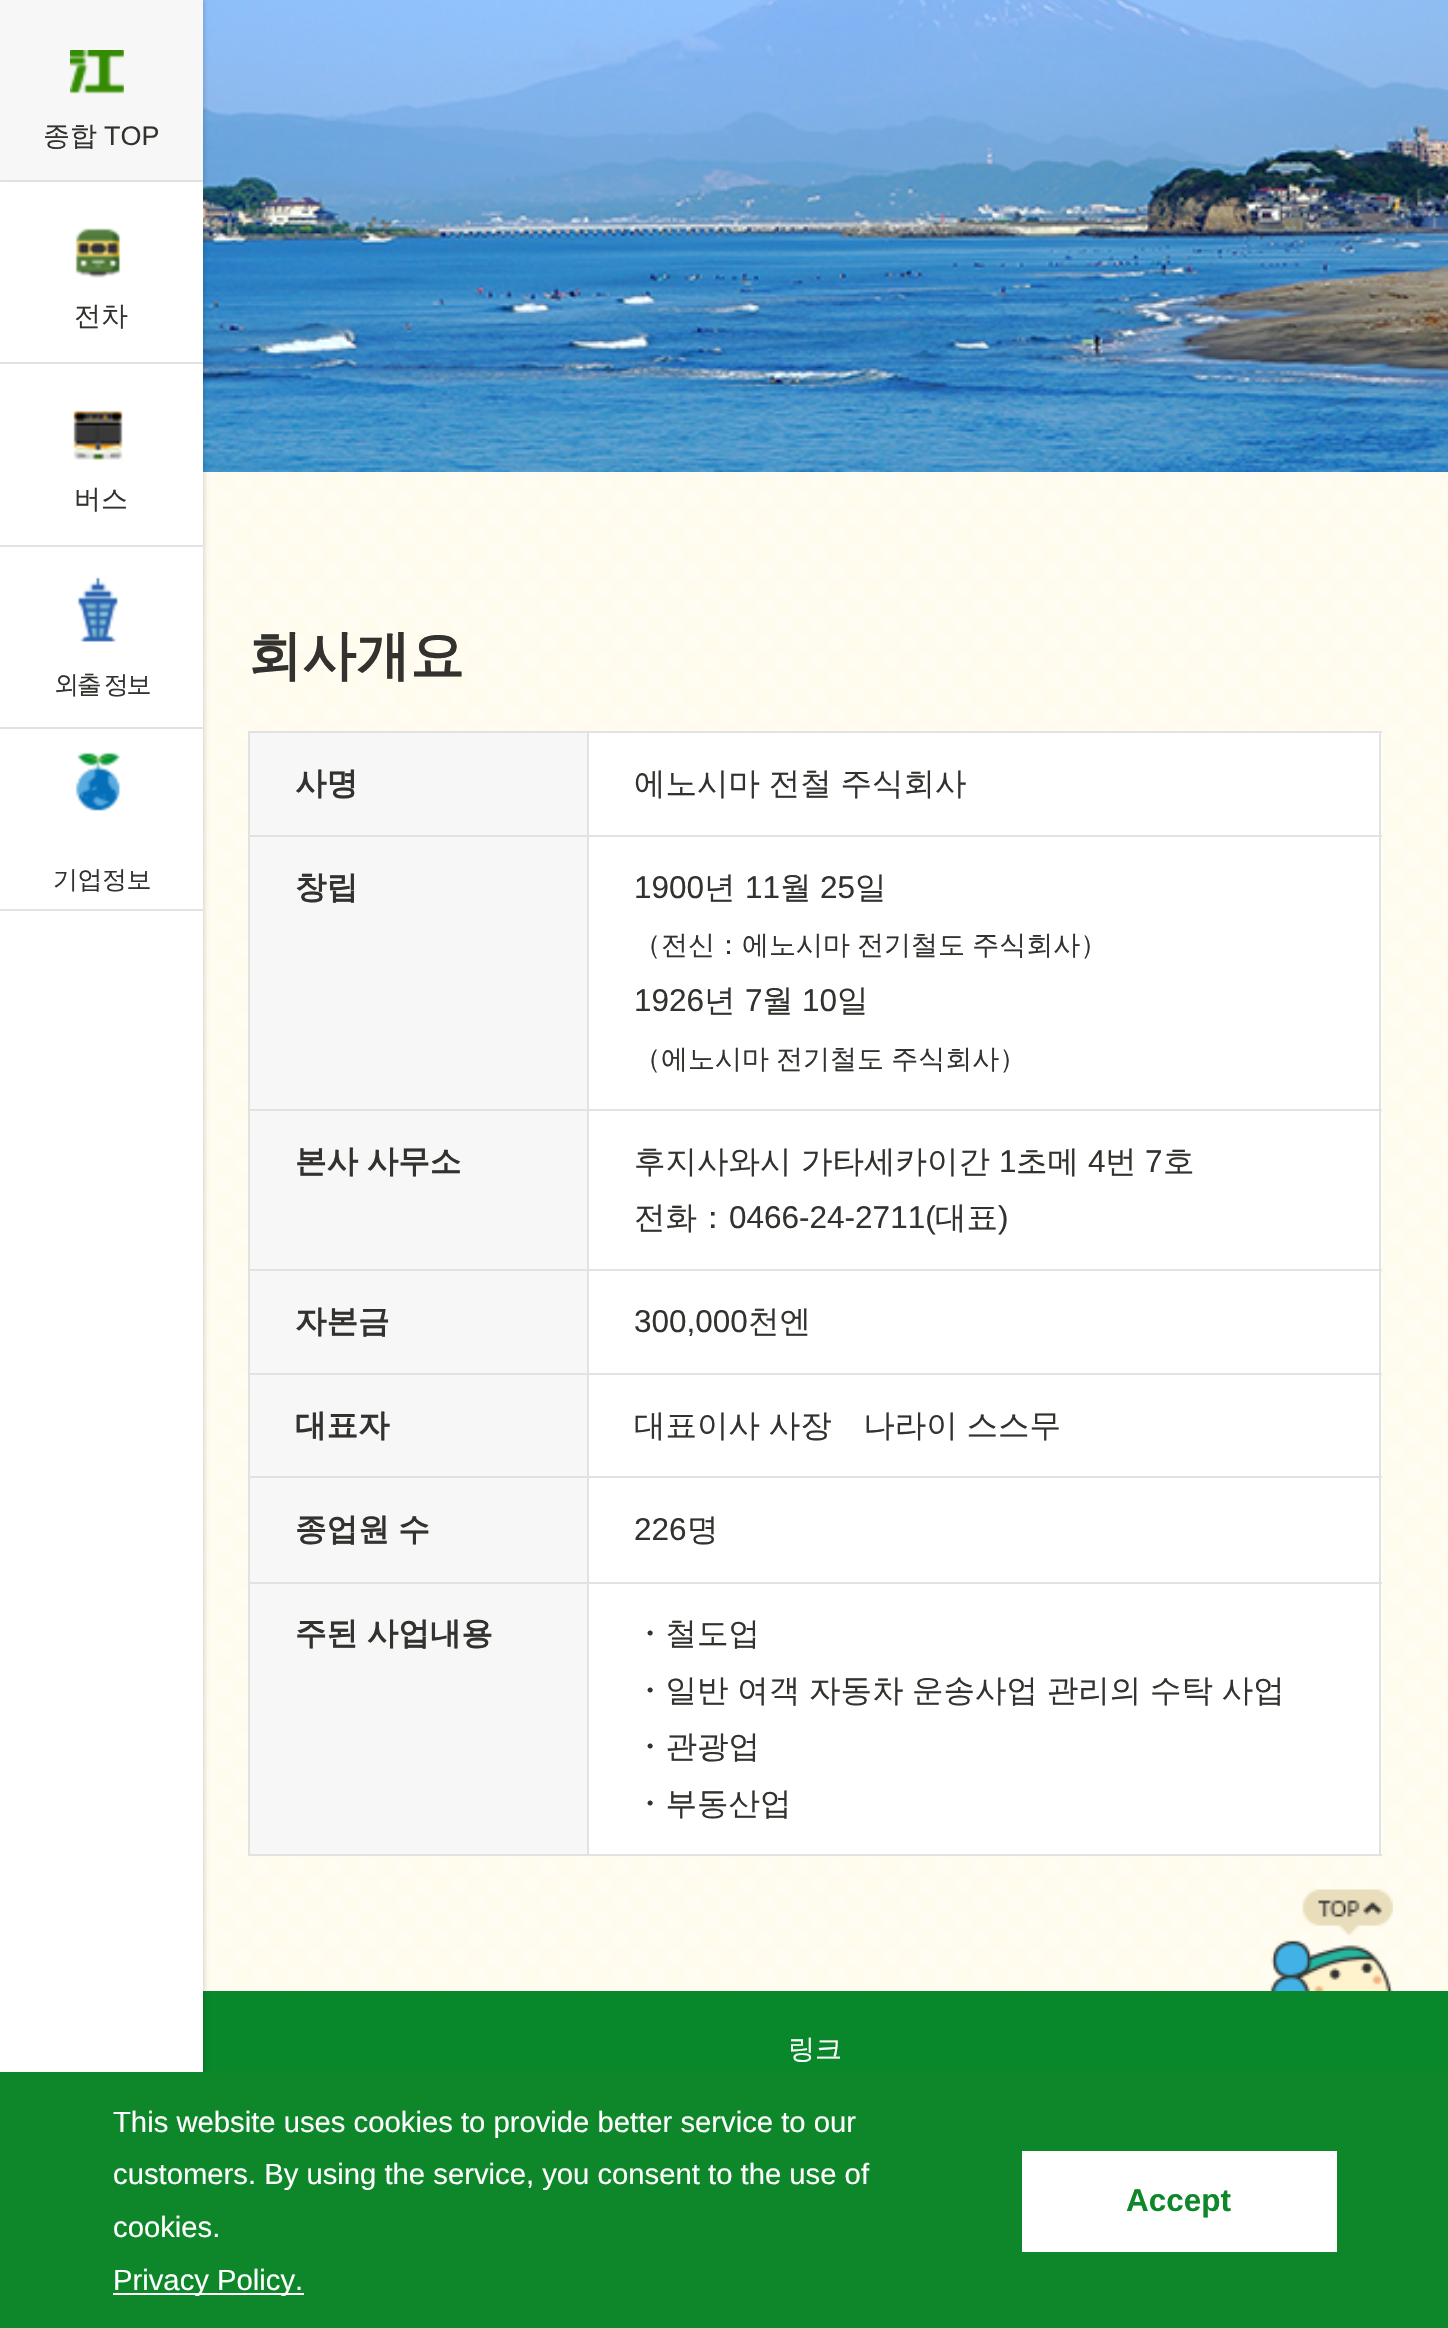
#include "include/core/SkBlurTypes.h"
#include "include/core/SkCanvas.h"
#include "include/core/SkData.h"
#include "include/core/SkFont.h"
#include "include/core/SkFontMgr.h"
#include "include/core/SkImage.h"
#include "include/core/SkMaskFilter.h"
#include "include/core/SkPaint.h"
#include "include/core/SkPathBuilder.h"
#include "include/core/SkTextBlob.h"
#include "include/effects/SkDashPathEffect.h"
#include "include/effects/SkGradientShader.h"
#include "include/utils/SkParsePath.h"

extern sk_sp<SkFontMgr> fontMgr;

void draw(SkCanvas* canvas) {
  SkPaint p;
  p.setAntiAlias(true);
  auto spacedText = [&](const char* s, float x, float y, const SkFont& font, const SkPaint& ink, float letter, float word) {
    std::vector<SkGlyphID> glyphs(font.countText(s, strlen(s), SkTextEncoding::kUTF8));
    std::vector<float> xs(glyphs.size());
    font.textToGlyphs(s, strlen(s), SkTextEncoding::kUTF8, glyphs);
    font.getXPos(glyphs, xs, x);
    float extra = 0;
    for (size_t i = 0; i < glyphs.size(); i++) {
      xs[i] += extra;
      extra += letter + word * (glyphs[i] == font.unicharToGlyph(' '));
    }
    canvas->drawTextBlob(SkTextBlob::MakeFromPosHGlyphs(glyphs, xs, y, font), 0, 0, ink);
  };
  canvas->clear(SK_ColorWHITE);
  canvas->drawImageRect(SkImages::DeferredFromEncodedData(SkData::MakeFromFileName("images/1.png")), SkRect::MakeLTRB(203, 472, 1448, 1991), SkSamplingOptions());
  canvas->drawImageRect(SkImages::DeferredFromEncodedData(SkData::MakeFromFileName("images/7.png")), SkRect::MakeLTRB(203, 0, 1448, 472), SkSamplingOptions());
  p.setColor(SkColorSetRGB(9, 135, 43));
  canvas->drawRect(SkRect::MakeLTRB(203, 1991, 1448, 2072), p);
  p.setColor(SkColorSetARGB(31, 0, 0, 0));
  p.setMaskFilter(SkMaskFilter::MakeBlur(kNormal_SkBlurStyle, 2));
  canvas->drawRect(SkRect::MakeLTRB(2, 0, 205, 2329), p);
  p.setMaskFilter(nullptr);
  p.setColor(SK_ColorWHITE);
  canvas->drawRect(SkRect::MakeLTRB(0, 182, 203, 2072), p);
  p.setColor(SkColorSetRGB(226, 226, 226));
  canvas->drawRect(SkRect::MakeLTRB(0, 180, 4, 182), p);
  p.setColor(SkColorSetRGB(247, 247, 247));
  canvas->drawRect(SkRect::MakeLTRB(0, 0, 203, 180), p);
  canvas->drawImageRect(SkImages::DeferredFromEncodedData(SkData::MakeFromFileName("images/2.png")), SkRect::MakeLTRB(70, 50, 124, 94), SkSamplingOptions());
  p.setColor(SkColorSetRGB(226, 226, 226));
  canvas->drawRect(SkRect::MakeLTRB(0, 362, 203, 364), p);
  canvas->drawImageRect(SkImages::DeferredFromEncodedData(SkData::MakeFromFileName("images/3.png")), SkRect::MakeLTRB(75, 228, 121, 278), SkSamplingOptions());
  canvas->drawRect(SkRect::MakeLTRB(0, 545, 203, 547), p);
  canvas->drawImageRect(SkImages::DeferredFromEncodedData(SkData::MakeFromFileName("images/4.png")), SkRect::MakeLTRB(73, 410, 123, 461), SkSamplingOptions());
  canvas->drawRect(SkRect::MakeLTRB(0, 727, 203, 729), p);
  canvas->drawImageRect(SkImages::DeferredFromEncodedData(SkData::MakeFromFileName("images/5.png")), SkRect::MakeLTRB(77, 577, 118, 642), SkSamplingOptions());
  canvas->drawRect(SkRect::MakeLTRB(0, 909, 203, 911), p);
  canvas->drawImageRect(SkImages::DeferredFromEncodedData(SkData::MakeFromFileName("images/6.png")), SkRect::MakeLTRB(75, 752, 121, 811), SkSamplingOptions());
  p.setColor(SK_ColorWHITE);
  canvas->drawRect(SkRect::MakeLTRB(589, 733, 1382, 1854), p);
  p.setColor(SkColorSetRGB(247, 247, 247));
  canvas->drawRect(SkRect::MakeLTRB(250, 733, 587, 835), p);
  p.setColor(SkColorSetRGB(226, 226, 226));
  canvas->drawRect(SkRect::MakeLTRB(587, 731, 1382, 733), p);
  canvas->drawRect(SkRect::MakeLTRB(587, 835, 1382, 837), p);
  canvas->drawRect(SkRect::MakeLTRB(587, 1109, 1382, 1111), p);
  canvas->drawRect(SkRect::MakeLTRB(587, 1269, 1382, 1271), p);
  canvas->drawRect(SkRect::MakeLTRB(587, 1373, 1382, 1375), p);
  canvas->drawRect(SkRect::MakeLTRB(587, 1476, 1382, 1478), p);
  canvas->drawRect(SkRect::MakeLTRB(587, 1582, 1382, 1584), p);
  canvas->drawRect(SkRect::MakeLTRB(1379, 1582, 1381, 1856), p);
  canvas->drawRect(SkRect::MakeLTRB(587, 1854, 1382, 1856), p);
  canvas->drawRect(SkRect::MakeLTRB(587, 1582, 589, 1856), p);
  canvas->drawRect(SkRect::MakeLTRB(248, 1582, 590, 1584), p);
  canvas->drawRect(SkRect::MakeLTRB(587, 1476, 589, 1584), p);
  canvas->drawRect(SkRect::MakeLTRB(248, 1476, 590, 1478), p);
  canvas->drawRect(SkRect::MakeLTRB(587, 1373, 589, 1478), p);
  canvas->drawRect(SkRect::MakeLTRB(248, 1373, 590, 1375), p);
  canvas->drawRect(SkRect::MakeLTRB(587, 1269, 589, 1375), p);
  canvas->drawRect(SkRect::MakeLTRB(248, 1269, 590, 1271), p);
  canvas->drawRect(SkRect::MakeLTRB(587, 1109, 589, 1271), p);
  canvas->drawRect(SkRect::MakeLTRB(248, 1109, 590, 1111), p);
  canvas->drawRect(SkRect::MakeLTRB(587, 835, 589, 1112), p);
  canvas->drawRect(SkRect::MakeLTRB(248, 835, 590, 837), p);
  canvas->drawRect(SkRect::MakeLTRB(587, 731, 589, 837), p);
  canvas->drawRect(SkRect::MakeLTRB(248, 731, 590, 733), p);
  canvas->drawRect(SkRect::MakeLTRB(248, 1854, 590, 1856), p);
  canvas->drawRect(SkRect::MakeLTRB(248, 1582, 250, 1856), p);
  canvas->drawRect(SkRect::MakeLTRB(248, 1476, 250, 1584), p);
  canvas->drawRect(SkRect::MakeLTRB(248, 1373, 250, 1478), p);
  canvas->drawRect(SkRect::MakeLTRB(248, 1269, 250, 1375), p);
  canvas->drawRect(SkRect::MakeLTRB(248, 1109, 250, 1271), p);
  canvas->drawRect(SkRect::MakeLTRB(248, 835, 250, 1112), p);
  canvas->drawRect(SkRect::MakeLTRB(248, 731, 250, 837), p);
  canvas->drawRect(SkRect::MakeLTRB(1379, 1476, 1381, 1584), p);
  canvas->drawRect(SkRect::MakeLTRB(1379, 1373, 1381, 1478), p);
  canvas->drawRect(SkRect::MakeLTRB(1379, 1269, 1381, 1375), p);
  canvas->drawRect(SkRect::MakeLTRB(1379, 1109, 1381, 1271), p);
  canvas->drawRect(SkRect::MakeLTRB(1379, 835, 1381, 1112), p);
  canvas->drawRect(SkRect::MakeLTRB(1379, 731, 1381, 837), p);
  p.setColor(SkColorSetRGB(247, 247, 247));
  canvas->drawRect(SkRect::MakeLTRB(250, 837, 587, 1109), p);
  canvas->drawRect(SkRect::MakeLTRB(250, 1111, 587, 1269), p);
  canvas->drawRect(SkRect::MakeLTRB(250, 1271, 587, 1373), p);
  canvas->drawRect(SkRect::MakeLTRB(250, 1375, 587, 1476), p);
  canvas->drawRect(SkRect::MakeLTRB(250, 1478, 587, 1582), p);
  canvas->drawRect(SkRect::MakeLTRB(250, 1584, 587, 1854), p);
  canvas->drawImageRect(SkImages::DeferredFromEncodedData(SkData::MakeFromFileName("images/8.png")), SkRect::MakeLTRB(1270, 1889, 1393, 1991), SkSamplingOptions());
  p.setColor(SkColorSetRGB(14, 135, 43));
  canvas->drawRect(SkRect::MakeLTRB(0, 2072, 1448, 2328), p);
  p.setColor(SK_ColorWHITE);
  canvas->drawRect(SkRect::MakeLTRB(113, 2293, 304, 2295), p);
  canvas->drawRect(SkRect::MakeLTRB(1022, 2151, 1337, 2252), p);
  SkFont font1(fontMgr->matchFamilyStyle("WenQuanYi Zen Hei", SkFontStyle(500, SkFontStyle::kNormal_Width, SkFontStyle::kUpright_Slant)), 27);
  font1.setSubpixel(true);
  p.setColor(SkColorSetRGB(51, 50, 47));
  canvas->drawString("종합", 43, 145, font1, p);
  SkFont font2(fontMgr->matchFamilyStyle("Liberation Sans", SkFontStyle::Normal()), 27);
  font2.setSubpixel(true);
  canvas->drawString("TOP", 104, 145, font2, p);
  canvas->drawString("전차", 74, 325, font1, p);
  canvas->drawString("버스", 74, 508, font1, p);
  SkFont font3(fontMgr->matchFamilyStyle("WenQuanYi Zen Hei", SkFontStyle(500, SkFontStyle::kNormal_Width, SkFontStyle::kUpright_Slant)), 25);
  font3.setSubpixel(true);
  spacedText("외출 정보", 54, 693, font3, p, -2.25f, -1);
  spacedText("기업정보", 53, 888, font3, p, -0.5f, 0);
  SkFont font4(fontMgr->matchFamilyStyle("WenQuanYi Zen Hei", SkFontStyle::Bold()), 54);
  font4.setSubpixel(true);
  canvas->drawString("회사개요", 248, 674, font4, p);
  SkFont font5(fontMgr->matchFamilyStyle("WenQuanYi Zen Hei", SkFontStyle::Bold()), 31.5f);
  font5.setSubpixel(true);
  canvas->drawString("사명", 295, 794, font5, p);
  SkFont font6(fontMgr->matchFamilyStyle("WenQuanYi Zen Hei", SkFontStyle(500, SkFontStyle::kNormal_Width, SkFontStyle::kUpright_Slant)), 31.5f);
  font6.setSubpixel(true);
  spacedText("에노시마 전철 주식회사", 634, 794, font6, p, 0, -0.75f);
  canvas->drawString("창립", 295, 898, font5, p);
  SkFont font7(fontMgr->matchFamilyStyle("Liberation Sans", SkFontStyle::Normal()), 31.5f);
  font7.setSubpixel(true);
  canvas->drawString("1900", 634, 898, font7, p);
  canvas->drawString("년", 704, 898, font6, p);
  canvas->drawString("11", 745, 898, font7, p);
  canvas->drawString("월", 780, 898, font6, p);
  canvas->drawString("25", 820, 898, font7, p);
  canvas->drawString("일", 855, 898, font6, p);
  spacedText("（전신：에노시마 전기철도 주식회사）", 634, 954, font1, p, 0, -1);
  canvas->drawString("1926", 634, 1011, font7, p);
  canvas->drawString("년", 704, 1011, font6, p);
  canvas->drawString("7", 745, 1011, font7, p);
  canvas->drawString("월", 762, 1011, font6, p);
  canvas->drawString("10", 802, 1011, font7, p);
  canvas->drawString("일", 837, 1011, font6, p);
  spacedText("（에노시마 전기철도 주식회사）", 634, 1068, font1, p, 0, -1);
  spacedText("본사 사무소", 295, 1172, font5, p, 0, -0.75f);
  canvas->drawString("후지사와시 가타세카이간", 634, 1172, font6, p);
  canvas->drawString("1", 999, 1172, font7, p);
  canvas->drawString("초메", 1016, 1172, font6, p);
  canvas->drawString("4", 1088, 1172, font7, p);
  canvas->drawString("번", 1105, 1172, font6, p);
  canvas->drawString("7", 1145, 1172, font7, p);
  canvas->drawString("호", 1163, 1172, font6, p);
  canvas->drawString("전화：", 634, 1228, font6, p);
  canvas->drawString("0466-24-2711(", 729, 1228, font7, p);
  canvas->drawString("대표", 935, 1228, font6, p);
  canvas->drawString(")", 998, 1228, font7, p);
  canvas->drawString("자본금", 295, 1332, font5, p);
  canvas->drawString("300,000", 634, 1332, font7, p);
  canvas->drawString("천엔", 748, 1332, font6, p);
  canvas->drawString("대표자", 295, 1436, font5, p);
  spacedText("대표이사 사장　나라이 스스무", 634, 1436, font6, p, 0, -0.75f);
  spacedText("종업원 수", 295, 1540, font5, p, 0, -0.75f);
  canvas->drawString("226", 634, 1540, font7, p);
  canvas->drawString("명", 687, 1540, font6, p);
  spacedText("주된 사업내용", 295, 1644, font5, p, 0, -0.75f);
  canvas->drawString("・철도업", 634, 1644, font6, p);
  spacedText("・일반 여객 자동차 운송사업 관리의 수탁 사업", 634, 1701, font6, p, 0, -0.75f);
  canvas->drawString("・관광업", 634, 1757, font6, p);
  canvas->drawString("・부동산업", 634, 1814, font6, p);
  p.setColor(SK_ColorWHITE);
  canvas->drawString("링크", 788, 2058, font1, p);
  SkFont font8(fontMgr->matchFamilyStyle("Liberation Sans", SkFontStyle::Normal()), 29.25f);
  font8.setSubpixel(true);
  canvas->drawString("This website uses cookies to provide better service to our", 113, 2132, font8, p);
  canvas->drawString("customers. By using the service, you consent to the use of", 113, 2184, font8, p);
  canvas->drawString("cookies.", 113, 2237, font8, p);
  canvas->drawString("Privacy Policy.", 113, 2290, font8, p);
  SkFont font9(fontMgr->matchFamilyStyle("Liberation Sans", SkFontStyle::Bold()), 31.5f);
  font9.setSubpixel(true);
  p.setColor(SkColorSetRGB(14, 135, 43));
  canvas->drawString("Accept", 1126, 2211, font9, p);
}
